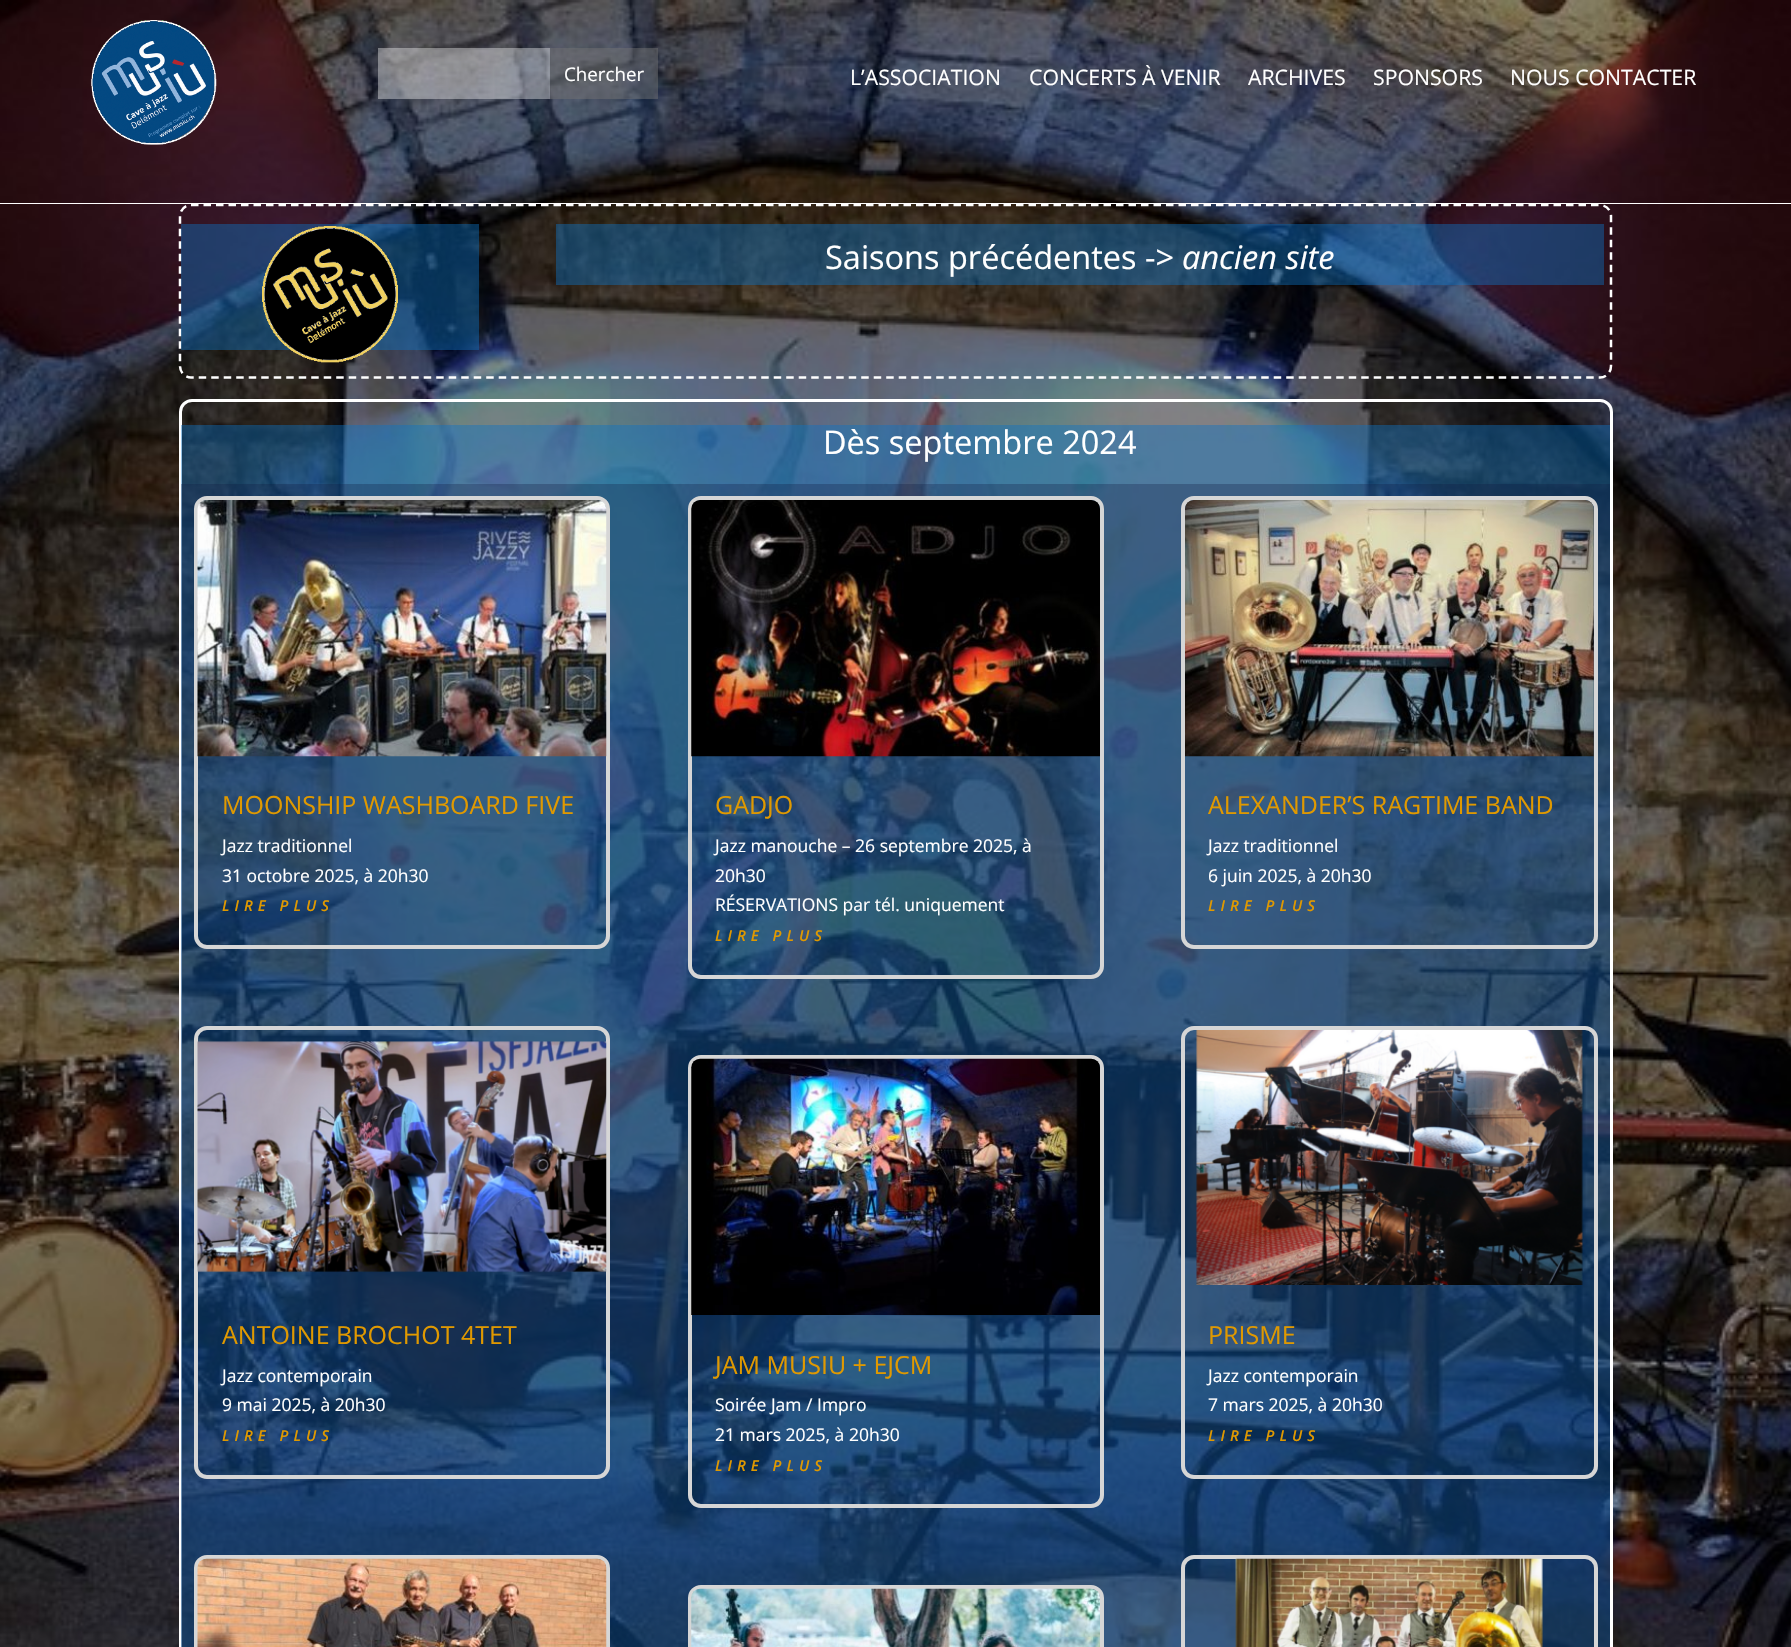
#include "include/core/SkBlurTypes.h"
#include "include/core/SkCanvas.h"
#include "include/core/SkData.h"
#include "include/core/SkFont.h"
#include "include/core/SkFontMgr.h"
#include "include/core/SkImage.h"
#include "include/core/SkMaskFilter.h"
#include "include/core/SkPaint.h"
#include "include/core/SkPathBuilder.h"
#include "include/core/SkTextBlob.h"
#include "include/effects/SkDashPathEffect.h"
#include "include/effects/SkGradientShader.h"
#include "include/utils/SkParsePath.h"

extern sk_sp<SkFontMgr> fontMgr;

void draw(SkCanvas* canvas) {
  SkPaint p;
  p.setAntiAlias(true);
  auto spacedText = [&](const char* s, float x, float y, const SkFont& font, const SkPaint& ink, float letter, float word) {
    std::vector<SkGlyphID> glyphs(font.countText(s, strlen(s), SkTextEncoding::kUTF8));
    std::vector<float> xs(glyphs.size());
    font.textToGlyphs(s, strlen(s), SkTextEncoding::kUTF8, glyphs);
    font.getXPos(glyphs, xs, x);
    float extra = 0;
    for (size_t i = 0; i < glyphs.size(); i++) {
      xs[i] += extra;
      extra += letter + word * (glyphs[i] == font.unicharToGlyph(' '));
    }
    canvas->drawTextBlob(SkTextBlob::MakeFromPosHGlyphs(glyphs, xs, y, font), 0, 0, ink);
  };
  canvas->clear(SK_ColorWHITE);
  canvas->drawImageRect(SkImages::DeferredFromEncodedData(SkData::MakeFromFileName("images/1.png")), SkRect::MakeLTRB(0, 0, 1791, 1647), SkSamplingOptions());
  p.setStyle(SkPaint::kStroke_Style);
  p.setStrokeWidth(2.5f);
  p.setColor(SK_ColorWHITE);
  p.setPathEffect(SkDashPathEffect::Make({{7.5f, 5}}, 0));
  canvas->drawPath(SkPathBuilder().moveTo(191, 205).lineTo(1600, 205).cubicTo(1606, 205, 1611, 210, 1611, 216).lineTo(1611, 366).cubicTo(1611, 372.5f, 1606, 377.5f, 1600, 377.5f).lineTo(191, 377.5f).cubicTo(185, 377.5f, 180, 372.5f, 180, 366).lineTo(180, 216).cubicTo(180, 210, 185, 205, 191, 205).close().detach(), p);
  p.setPathEffect(nullptr);
  p.setStyle(SkPaint::kFill_Style);
  canvas->drawRect(SkRect::MakeLTRB(0, 203, 1791, 204), p);
  canvas->drawImageRect(SkImages::DeferredFromEncodedData(SkData::MakeFromFileName("images/2.png")), SkRect::MakeLTRB(91, 20, 217, 145), SkSamplingOptions());
  p.setColor(SkColorSetARGB(71, 255, 255, 255));
  canvas->drawRect(SkRect::MakeLTRB(378, 48, 658, 99), p);
  p.setColor(SkColorSetARGB(33, 255, 255, 255));
  canvas->drawRect(SkRect::MakeLTRB(378, 48, 550, 99), p);
  p.setColor(SkColorSetARGB(64, 0, 0, 0));
  canvas->drawRect(SkRect::MakeLTRB(550, 48, 658, 99), p);
  p.setColor(SkColorSetARGB(110, 12, 113, 195));
  canvas->drawRect(SkRect::MakeLTRB(181, 224, 479, 350), p);
  canvas->drawImageRect(SkImages::DeferredFromEncodedData(SkData::MakeFromFileName("images/3.png")), SkRect::MakeLTRB(262, 226, 398, 363), SkSamplingOptions());
  canvas->drawRect(SkRect::MakeLTRB(556, 224, 1604, 285), p);
  p.setStyle(SkPaint::kStroke_Style);
  p.setStrokeWidth(3);
  p.setColor(SK_ColorWHITE);
  canvas->drawRoundRect(SkRect::MakeLTRB(180.5f, 400.5f, 1611.5f, 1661.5f), 11.5f, 11.5f, p);
  p.setStyle(SkPaint::kFill_Style);
  p.setColor(SkColorSetARGB(110, 12, 113, 195));
  canvas->drawRect(SkRect::MakeLTRB(181, 425, 1610, 1647), p);
  p.setColor(SkColorSetARGB(74, 13, 25, 61));
  canvas->drawRect(SkRect::MakeLTRB(181, 484, 1610, 1647), p);
  p.setStyle(SkPaint::kStroke_Style);
  p.setStrokeWidth(4);
  p.setColor(SkColorSetRGB(214, 214, 214));
  canvas->drawRoundRect(SkRect::MakeLTRB(196, 498, 608, 947), 11, 11, p);
  canvas->drawImageRect(SkImages::DeferredFromEncodedData(SkData::MakeFromFileName("images/4.png")), SkRect::MakeLTRB(197, 500, 607, 757), SkSamplingOptions());
  canvas->drawRoundRect(SkRect::MakeLTRB(196, 1028, 608, 1477), 11, 11, p);
  canvas->drawImageRect(SkImages::DeferredFromEncodedData(SkData::MakeFromFileName("images/5.png")), SkRect::MakeLTRB(197, 1041, 607, 1273), SkSamplingOptions());
  canvas->drawRoundRect(SkRect::MakeLTRB(196, 1557, 608, 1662), 11, 11, p);
  canvas->drawImageRect(SkImages::DeferredFromEncodedData(SkData::MakeFromFileName("images/6.png")), SkRect::MakeLTRB(197, 1558, 607, 1647), SkSamplingOptions());
  canvas->drawRoundRect(SkRect::MakeLTRB(690, 498, 1102, 977), 11, 11, p);
  canvas->drawImageRect(SkImages::DeferredFromEncodedData(SkData::MakeFromFileName("images/7.png")), SkRect::MakeLTRB(691, 500, 1100, 757), SkSamplingOptions());
  canvas->drawRoundRect(SkRect::MakeLTRB(690, 1057, 1102, 1506), 11, 11, p);
  canvas->drawImageRect(SkImages::DeferredFromEncodedData(SkData::MakeFromFileName("images/8.png")), SkRect::MakeLTRB(691, 1058, 1100, 1315), SkSamplingOptions());
  canvas->drawRoundRect(SkRect::MakeLTRB(690, 1587, 1102, 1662), 11, 11, p);
  canvas->drawImageRect(SkImages::DeferredFromEncodedData(SkData::MakeFromFileName("images/9.png")), SkRect::MakeLTRB(691, 1588, 1100, 1647), SkSamplingOptions());
  canvas->drawRoundRect(SkRect::MakeLTRB(1183, 498, 1596, 947), 11, 11, p);
  canvas->drawImageRect(SkImages::DeferredFromEncodedData(SkData::MakeFromFileName("images/10.png")), SkRect::MakeLTRB(1185, 500, 1594, 757), SkSamplingOptions());
  canvas->drawRoundRect(SkRect::MakeLTRB(1183, 1028, 1596, 1477), 11, 11, p);
  canvas->drawImageRect(SkImages::DeferredFromEncodedData(SkData::MakeFromFileName("images/11.png")), SkRect::MakeLTRB(1196, 1030, 1583, 1285), SkSamplingOptions());
  canvas->drawRoundRect(SkRect::MakeLTRB(1183, 1557, 1596, 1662), 11, 11, p);
  canvas->drawImageRect(SkImages::DeferredFromEncodedData(SkData::MakeFromFileName("images/12.png")), SkRect::MakeLTRB(1235, 1558, 1543, 1647), SkSamplingOptions());
  SkFont font1(fontMgr->matchFamilyStyle("Open Sans", SkFontStyle::Normal()), 18.75f);
  font1.setSubpixel(true);
  p.setStyle(SkPaint::kFill_Style);
  p.setColor(SK_ColorWHITE);
  canvas->drawString("Chercher", 564, 81, font1, p);
  SkFont font2(fontMgr->matchFamilyStyle("Open Sans", SkFontStyle::Normal()), 21.25f);
  font2.setSubpixel(true);
  canvas->drawString("L’ASSOCIATION", 850, 85, font2, p);
  canvas->drawString("CONCERTS À VENIR", 1029, 85, font2, p);
  canvas->drawString("ARCHIVES", 1248, 85, font2, p);
  canvas->drawString("SPONSORS", 1373, 85, font2, p);
  canvas->drawString("NOUS CONTACTER", 1510, 85, font2, p);
  SkFont font3(fontMgr->matchFamilyStyle("Open Sans", SkFontStyle::Normal()), 32.5f);
  font3.setSubpixel(true);
  canvas->drawString("Saisons précédentes ->", 825, 269, font3, p);
  SkFont font4(fontMgr->matchFamilyStyle("Open Sans", SkFontStyle::Italic()), 32.5f);
  font4.setSubpixel(true);
  canvas->drawString("ancien site", 1182, 269, font4, p);
  canvas->drawString("Dès septembre 2024", 823, 454, font3, p);
  SkFont font5(fontMgr->matchFamilyStyle("Open Sans", SkFontStyle::Normal()), 25);
  font5.setSubpixel(true);
  p.setColor(SkColorSetRGB(224, 153, 0));
  canvas->drawString("MOONSHIP WASHBOARD FIVE", 222, 814, font5, p);
  SkFont font6(fontMgr->matchFamilyStyle("Open Sans", SkFontStyle::Normal()), 17.5f);
  font6.setSubpixel(true);
  p.setColor(SK_ColorWHITE);
  canvas->drawString("Jazz traditionnel", 222, 852, font6, p);
  canvas->drawString("31 octobre 2025, à 20h30", 222, 882, font6, p);
  SkFont font7(fontMgr->matchFamilyStyle("Open Sans", SkFontStyle(600, SkFontStyle::kNormal_Width, SkFontStyle::kItalic_Slant)), 15);
  font7.setSubpixel(true);
  p.setColor(SkColorSetRGB(224, 153, 0));
  spacedText("LIRE PLUS", 222, 911, font7, p, 5, 0);
  canvas->drawString("ANTOINE BROCHOT 4TET", 222, 1344, font5, p);
  p.setColor(SK_ColorWHITE);
  canvas->drawString("Jazz contemporain", 222, 1382, font6, p);
  canvas->drawString("9 mai 2025, à 20h30", 222, 1411, font6, p);
  p.setColor(SkColorSetRGB(224, 153, 0));
  spacedText("LIRE PLUS", 222, 1441, font7, p, 5, 0);
  canvas->drawString("GADJO", 715, 814, font5, p);
  p.setColor(SK_ColorWHITE);
  canvas->drawString("Jazz manouche – 26 septembre 2025, à", 715, 852, font6, p);
  canvas->drawString("20h30", 715, 882, font6, p);
  canvas->drawString("RÉSERVATIONS par tél. uniquement", 715, 911, font6, p);
  p.setColor(SkColorSetRGB(224, 153, 0));
  spacedText("LIRE PLUS", 715, 941, font7, p, 5, 0);
  canvas->drawString("JAM MUSIU + EJCM", 715, 1374, font5, p);
  p.setColor(SK_ColorWHITE);
  canvas->drawString("Soirée Jam / Impro", 715, 1411, font6, p);
  canvas->drawString("21 mars 2025, à 20h30", 715, 1441, font6, p);
  p.setColor(SkColorSetRGB(224, 153, 0));
  spacedText("LIRE PLUS", 715, 1471, font7, p, 5, 0);
  canvas->drawString("ALEXANDER’S RAGTIME BAND", 1208, 814, font5, p);
  p.setColor(SK_ColorWHITE);
  canvas->drawString("Jazz traditionnel", 1208, 852, font6, p);
  canvas->drawString("6 juin 2025, à 20h30", 1208, 882, font6, p);
  p.setColor(SkColorSetRGB(224, 153, 0));
  spacedText("LIRE PLUS", 1208, 911, font7, p, 5, 0);
  canvas->drawString("PRISME", 1208, 1344, font5, p);
  p.setColor(SK_ColorWHITE);
  canvas->drawString("Jazz contemporain", 1208, 1382, font6, p);
  canvas->drawString("7 mars 2025, à 20h30", 1208, 1411, font6, p);
  p.setColor(SkColorSetRGB(224, 153, 0));
  spacedText("LIRE PLUS", 1208, 1441, font7, p, 5, 0);
}
